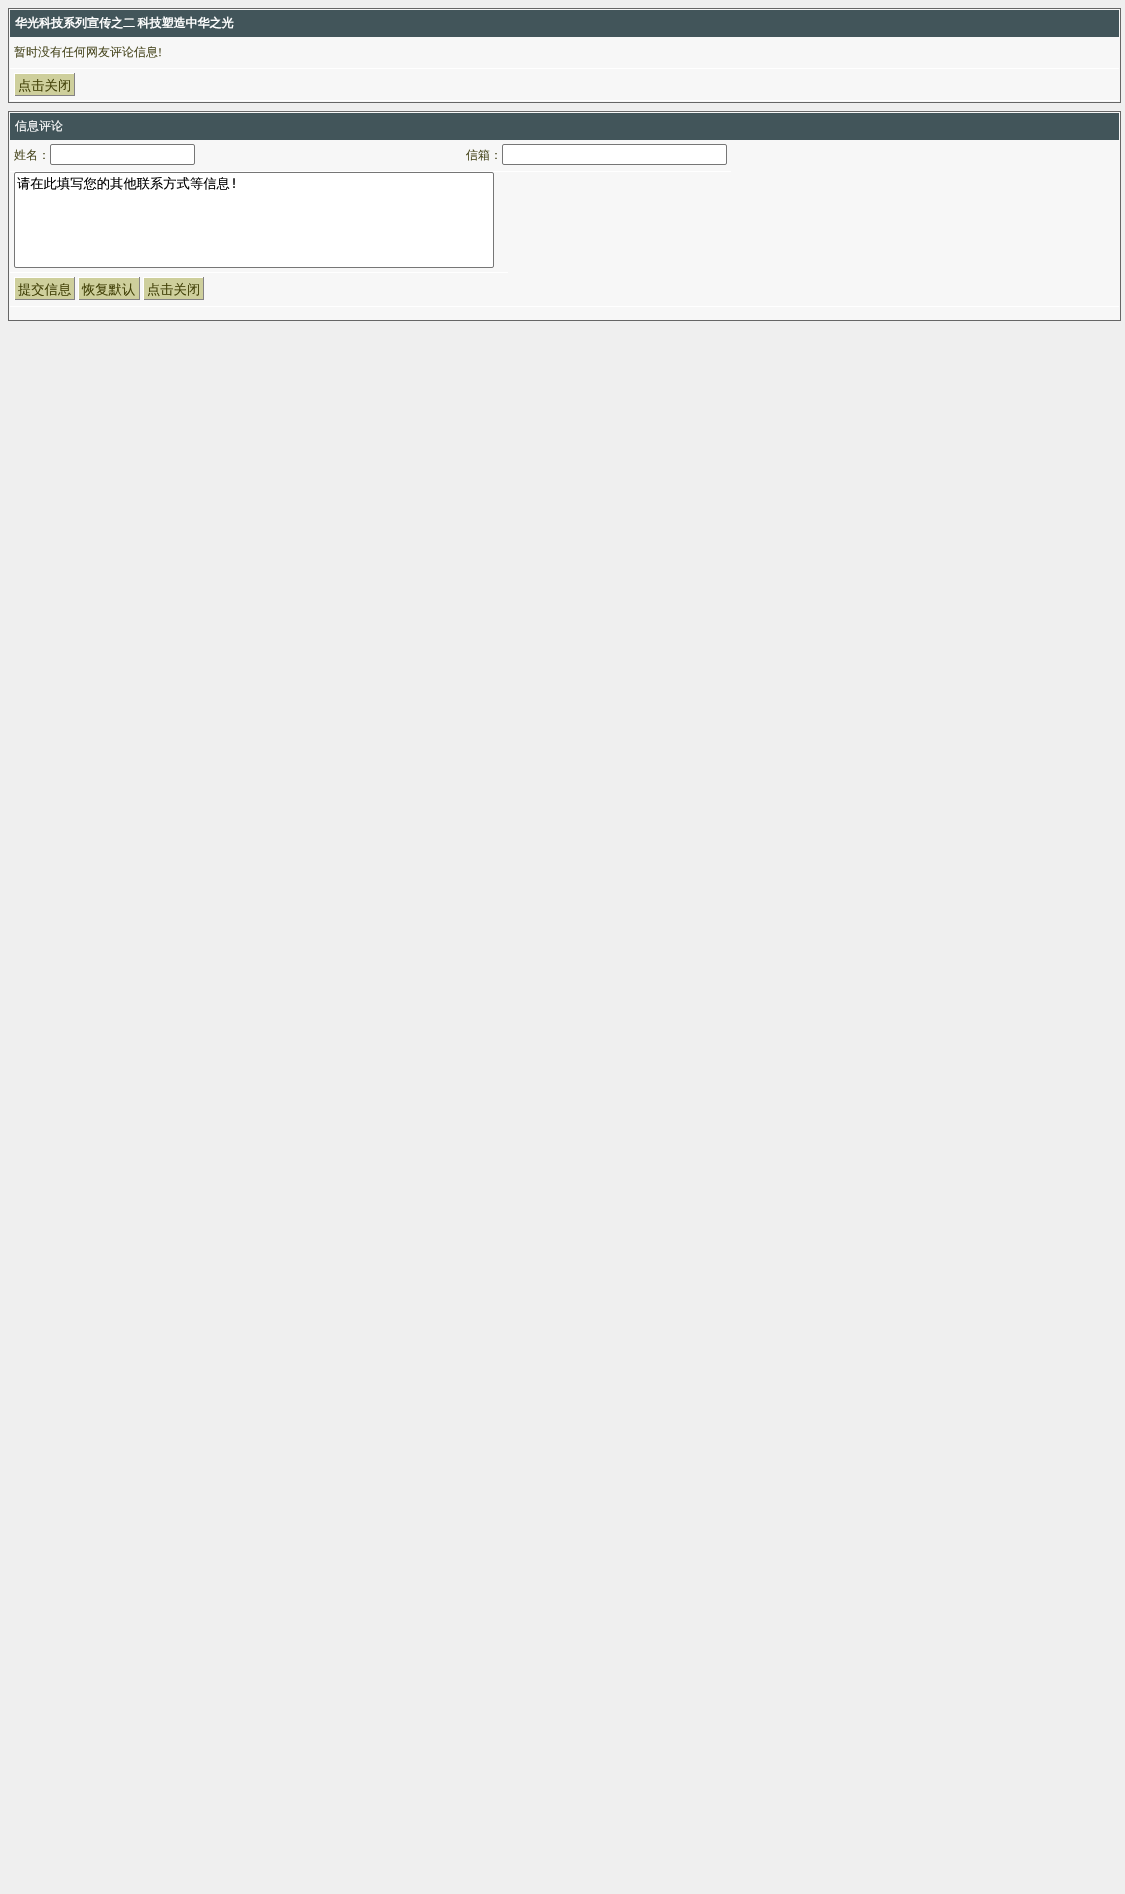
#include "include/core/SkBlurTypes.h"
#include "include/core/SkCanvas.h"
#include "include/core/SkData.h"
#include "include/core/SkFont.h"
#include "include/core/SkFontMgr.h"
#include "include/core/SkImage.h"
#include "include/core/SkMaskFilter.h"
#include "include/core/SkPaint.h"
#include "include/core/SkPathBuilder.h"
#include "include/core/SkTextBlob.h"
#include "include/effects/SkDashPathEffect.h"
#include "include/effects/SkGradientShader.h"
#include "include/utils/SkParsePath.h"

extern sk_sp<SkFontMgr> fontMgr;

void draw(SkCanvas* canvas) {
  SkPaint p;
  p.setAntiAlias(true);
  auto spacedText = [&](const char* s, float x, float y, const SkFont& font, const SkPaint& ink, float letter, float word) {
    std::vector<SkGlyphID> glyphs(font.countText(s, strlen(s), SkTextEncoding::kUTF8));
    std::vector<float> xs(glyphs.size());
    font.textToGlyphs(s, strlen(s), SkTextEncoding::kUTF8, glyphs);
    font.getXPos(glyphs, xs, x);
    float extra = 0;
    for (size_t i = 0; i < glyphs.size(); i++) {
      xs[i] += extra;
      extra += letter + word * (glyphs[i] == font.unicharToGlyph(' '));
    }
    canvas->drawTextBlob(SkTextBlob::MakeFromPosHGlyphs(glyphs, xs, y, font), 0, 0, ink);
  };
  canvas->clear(SkColorSetRGB(239, 239, 239));
  p.setColor(SkColorSetRGB(247, 247, 247));
  canvas->drawRect(SkRect::MakeLTRB(8.5f, 8.5f, 1120.5f, 102.5f), p);
  p.setStyle(SkPaint::kStroke_Style);
  p.setStrokeWidth(1);
  p.setColor(SkColorSetRGB(102, 102, 102));
  canvas->drawRect(SkRect::MakeLTRB(8.5f, 8.5f, 1120.5f, 102.5f), p);
  p.setStyle(SkPaint::kFill_Style);
  p.setColor(SkColorSetRGB(66, 85, 90));
  canvas->drawRect(SkRect::MakeLTRB(10, 10, 1119, 37), p);
  p.setColor(SK_ColorWHITE);
  canvas->drawRect(SkRect::MakeLTRB(10, 68, 1119, 69), p);
  canvas->drawRect(SkRect::MakeLTRB(10, 100, 1119, 101), p);
  p.setColor(SkColorSetRGB(206, 207, 156));
  canvas->drawRect(SkRect::MakeLTRB(15, 74, 74, 95), p);
  p.setColor(SK_ColorWHITE);
  canvas->drawRect(SkRect::MakeLTRB(14, 73, 75, 74), p);
  p.setColor(SkColorSetRGB(132, 130, 132));
  canvas->drawRect(SkRect::MakeLTRB(74, 73, 75, 96), p);
  canvas->drawRect(SkRect::MakeLTRB(14, 95, 75, 96), p);
  p.setColor(SK_ColorWHITE);
  canvas->drawRect(SkRect::MakeLTRB(14, 73, 15, 96), p);
  p.setColor(SkColorSetRGB(247, 247, 247));
  canvas->drawRect(SkRect::MakeLTRB(8.5f, 111.5f, 1120.5f, 320.5f), p);
  p.setStyle(SkPaint::kStroke_Style);
  p.setColor(SkColorSetRGB(102, 102, 102));
  canvas->drawRect(SkRect::MakeLTRB(8.5f, 111.5f, 1120.5f, 320.5f), p);
  p.setStyle(SkPaint::kFill_Style);
  p.setColor(SkColorSetRGB(66, 85, 90));
  canvas->drawRect(SkRect::MakeLTRB(10, 113, 1119, 140), p);
  p.setColor(SK_ColorWHITE);
  canvas->drawRect(SkRect::MakeLTRB(10, 171, 731, 172), p);
  canvas->drawRoundRect(SkRect::MakeLTRB(50.5f, 144.5f, 194.5f, 164.5f), 1.5f, 1.5f, p);
  p.setStyle(SkPaint::kStroke_Style);
  p.setColor(SkColorSetRGB(118, 118, 118));
  canvas->drawRoundRect(SkRect::MakeLTRB(50.5f, 144.5f, 194.5f, 164.5f), 1.5f, 1.5f, p);
  p.setStyle(SkPaint::kFill_Style);
  p.setColor(SK_ColorWHITE);
  canvas->drawRoundRect(SkRect::MakeLTRB(502.5f, 144.5f, 726.5f, 164.5f), 1.5f, 1.5f, p);
  p.setStyle(SkPaint::kStroke_Style);
  p.setColor(SkColorSetRGB(118, 118, 118));
  canvas->drawRoundRect(SkRect::MakeLTRB(502.5f, 144.5f, 726.5f, 164.5f), 1.5f, 1.5f, p);
  p.setStyle(SkPaint::kFill_Style);
  p.setColor(SK_ColorWHITE);
  canvas->drawRect(SkRect::MakeLTRB(10, 272, 508, 273), p);
  canvas->drawRoundRect(SkRect::MakeLTRB(14.5f, 172.5f, 493.5f, 267.5f), 1.5f, 1.5f, p);
  p.setStyle(SkPaint::kStroke_Style);
  p.setColor(SkColorSetRGB(118, 118, 118));
  canvas->drawRoundRect(SkRect::MakeLTRB(14.5f, 172.5f, 493.5f, 267.5f), 1.5f, 1.5f, p);
  p.setStyle(SkPaint::kFill_Style);
  p.setColor(SK_ColorWHITE);
  canvas->drawRect(SkRect::MakeLTRB(10, 306, 1119, 307), p);
  p.setColor(SkColorSetRGB(206, 207, 156));
  canvas->drawRect(SkRect::MakeLTRB(15, 278, 74, 299), p);
  p.setColor(SK_ColorWHITE);
  canvas->drawRect(SkRect::MakeLTRB(14, 277, 75, 278), p);
  p.setColor(SkColorSetRGB(132, 130, 132));
  canvas->drawRect(SkRect::MakeLTRB(74, 277, 75, 300), p);
  canvas->drawRect(SkRect::MakeLTRB(14, 299, 75, 300), p);
  p.setColor(SK_ColorWHITE);
  canvas->drawRect(SkRect::MakeLTRB(14, 277, 15, 300), p);
  p.setColor(SkColorSetRGB(206, 207, 156));
  canvas->drawRect(SkRect::MakeLTRB(79, 278, 139, 299), p);
  p.setColor(SK_ColorWHITE);
  canvas->drawRect(SkRect::MakeLTRB(78, 277, 140, 278), p);
  p.setColor(SkColorSetRGB(132, 130, 132));
  canvas->drawRect(SkRect::MakeLTRB(139, 277, 140, 300), p);
  canvas->drawRect(SkRect::MakeLTRB(78, 299, 140, 300), p);
  p.setColor(SK_ColorWHITE);
  canvas->drawRect(SkRect::MakeLTRB(78, 277, 79, 300), p);
  p.setColor(SkColorSetRGB(206, 207, 156));
  canvas->drawRect(SkRect::MakeLTRB(144, 278, 203, 299), p);
  p.setColor(SK_ColorWHITE);
  canvas->drawRect(SkRect::MakeLTRB(143, 277, 204, 278), p);
  p.setColor(SkColorSetRGB(132, 130, 132));
  canvas->drawRect(SkRect::MakeLTRB(203, 277, 204, 300), p);
  canvas->drawRect(SkRect::MakeLTRB(143, 299, 204, 300), p);
  p.setColor(SK_ColorWHITE);
  canvas->drawRect(SkRect::MakeLTRB(143, 277, 144, 300), p);
  SkFont font1(fontMgr->matchFamilyStyle("WenQuanYi Zen Hei", SkFontStyle::Bold()), 12);
  font1.setSubpixel(true);
  spacedText("华光科技系列宣传之二 科技塑造中华之光", 15, 27, font1, p, 0, -1);
  SkFont font2(fontMgr->matchFamilyStyle("WenQuanYi Zen Hei", SkFontStyle(500, SkFontStyle::kNormal_Width, SkFontStyle::kUpright_Slant)), 12);
  font2.setSubpixel(true);
  p.setColor(SkColorSetRGB(74, 73, 33));
  canvas->drawString("暂时没有任何网友评论信息", 14, 56, font2, p);
  SkFont font3(fontMgr->matchFamilyStyle("Liberation Serif", SkFontStyle::Normal()), 12);
  font3.setSubpixel(true);
  canvas->drawString("!", 158, 56, font3, p);
  SkFont font4(fontMgr->matchFamilyStyle("WenQuanYi Zen Hei", SkFontStyle(500, SkFontStyle::kNormal_Width, SkFontStyle::kUpright_Slant)), 13.3f);
  font4.setSubpixel(true);
  p.setColor(SkColorSetRGB(66, 65, 8));
  canvas->drawString("点击关闭", 18, 90, font4, p);
  p.setColor(SK_ColorWHITE);
  canvas->drawString("信息评论", 15, 130, font2, p);
  p.setColor(SkColorSetRGB(74, 73, 33));
  canvas->drawString("姓名：", 14, 159, font2, p);
  canvas->drawString("信箱：", 466, 159, font2, p);
  p.setColor(SK_ColorBLACK);
  canvas->drawString("请在此填写您的其他联系方式等信息", 17, 188, font4, p);
  SkFont font5(fontMgr->matchFamilyStyle("DejaVu Sans Mono", SkFontStyle::Normal()), 13.3f);
  font5.setSubpixel(true);
  canvas->drawString("!", 230, 188, font5, p);
  p.setColor(SkColorSetRGB(66, 65, 8));
  canvas->drawString("提交信息", 18, 294, font4, p);
  canvas->drawString("恢复默认", 82, 294, font4, p);
  canvas->drawString("点击关闭", 147, 294, font4, p);
}
